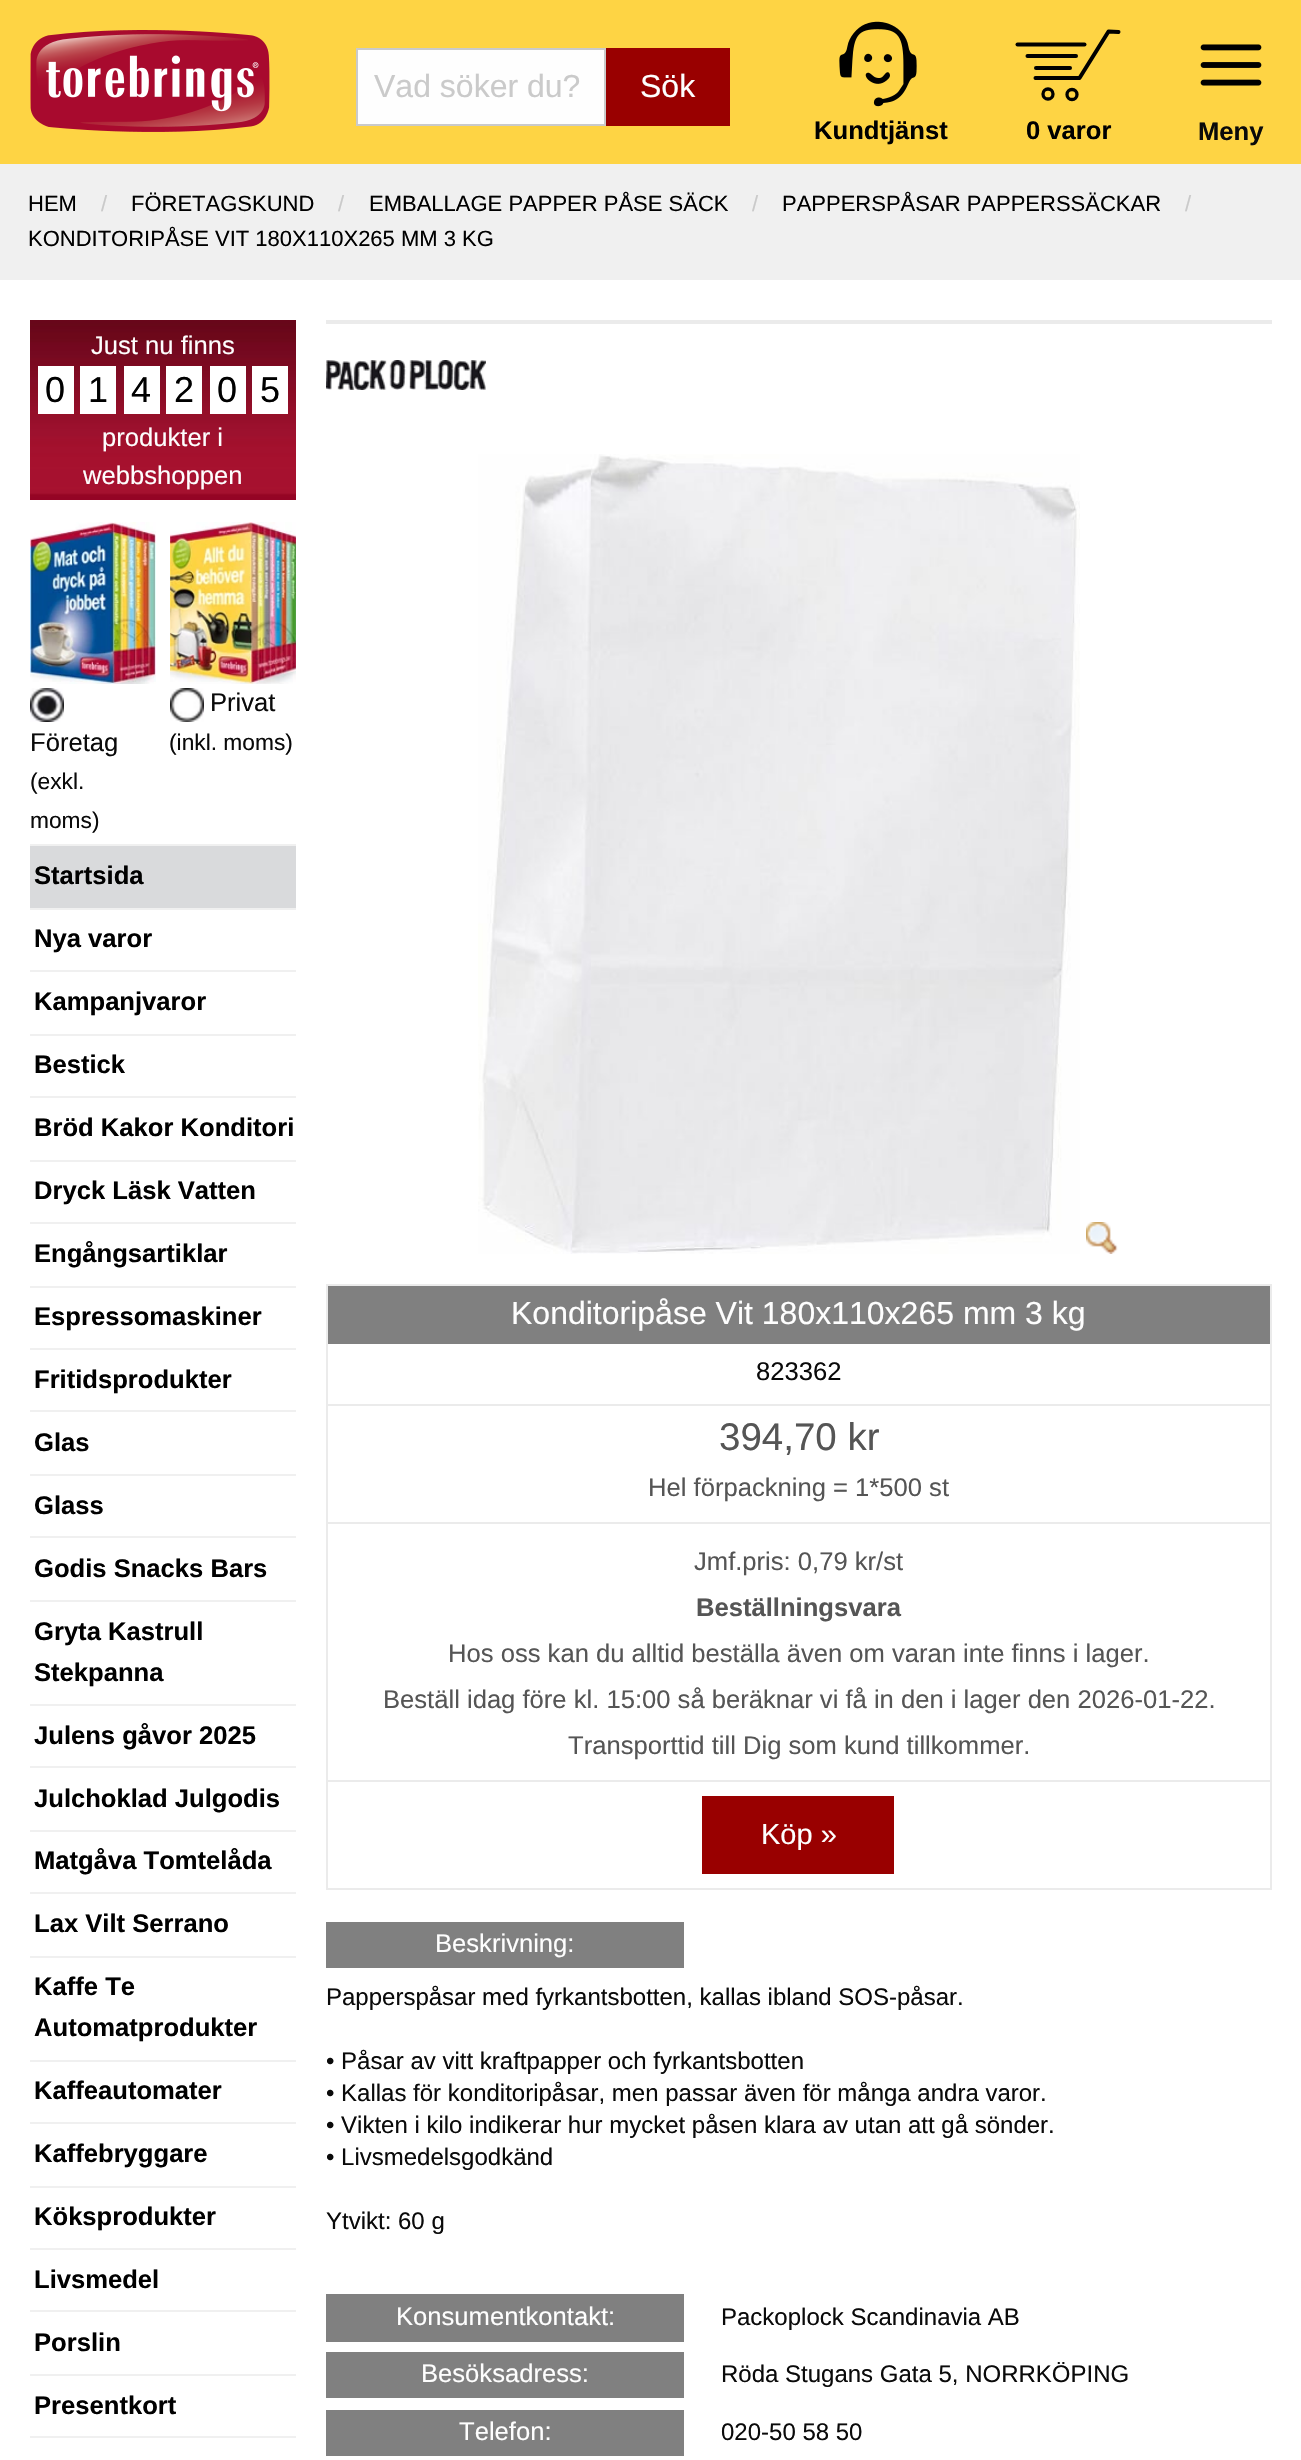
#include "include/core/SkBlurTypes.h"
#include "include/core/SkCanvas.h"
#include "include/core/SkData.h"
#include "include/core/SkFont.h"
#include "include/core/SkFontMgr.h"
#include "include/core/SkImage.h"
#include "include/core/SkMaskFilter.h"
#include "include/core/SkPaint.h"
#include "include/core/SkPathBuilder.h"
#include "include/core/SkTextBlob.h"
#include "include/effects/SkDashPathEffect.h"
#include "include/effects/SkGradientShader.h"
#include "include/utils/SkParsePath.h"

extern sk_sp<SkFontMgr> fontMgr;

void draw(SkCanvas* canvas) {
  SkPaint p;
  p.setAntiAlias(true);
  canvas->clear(SK_ColorWHITE);
  p.setColor(SkColorSetRGB(254, 212, 68));
  canvas->drawRect(SkRect::MakeLTRB(0, 0, 1301, 164), p);
  canvas->drawImageRect(SkImages::DeferredFromEncodedData(SkData::MakeFromFileName("images/1.png")), SkRect::MakeLTRB(30, 30, 270, 132), SkSamplingOptions());
  p.setColor(SkColorSetRGB(254, 254, 254));
  canvas->drawRect(SkRect::MakeLTRB(357, 49, 605, 125), p);
  p.setStyle(SkPaint::kStroke_Style);
  p.setStrokeWidth(2);
  p.setColor(SkColorSetRGB(202, 202, 202));
  canvas->drawRect(SkRect::MakeLTRB(357, 49, 605, 125), p);
  p.setStyle(SkPaint::kFill_Style);
  p.setColor(SkColorSetRGB(153, 0, 0));
  canvas->drawRect(SkRect::MakeLTRB(606, 48, 730, 126), p);
  canvas->drawImageRect(SkImages::DeferredFromEncodedData(SkData::MakeFromFileName("images/2.png")), SkRect::MakeLTRB(839, 21, 917, 107), SkSamplingOptions());
  p.setStyle(SkPaint::kStroke_Style);
  p.setStrokeWidth(4);
  p.setStrokeCap(SkPaint::kRound_Cap);
  p.setStrokeJoin(SkPaint::kRound_Join);
  p.setColor(SK_ColorBLACK);
  canvas->drawPath(SkPathBuilder().moveTo(1118.5f, 32).lineTo(1108.5f, 31.5f).lineTo(1079.5f, 78).lineTo(1035.5f, 78).detach(), p);
  p.setStrokeJoin(SkPaint::kMiter_Join);
  canvas->drawPath(SkPathBuilder().moveTo(1084.5f, 44.5f).lineTo(1017.5f, 44.5f).detach(), p);
  canvas->drawPath(SkPathBuilder().moveTo(1027.5f, 56).lineTo(1076, 56).detach(), p);
  p.setStrokeJoin(SkPaint::kRound_Join);
  canvas->drawPath(SkPathBuilder().moveTo(1070, 68).lineTo(1036, 68).detach(), p);
  p.setStrokeWidth(3.3f);
  p.setStrokeCap(SkPaint::kButt_Cap);
  p.setStrokeJoin(SkPaint::kMiter_Join);
  canvas->drawCircle(1048, 94, 5, p);
  canvas->drawCircle(1072, 94.5f, 5, p);
  canvas->drawImageRect(SkImages::DeferredFromEncodedData(SkData::MakeFromFileName("images/3.png")), SkRect::MakeLTRB(1200, 44, 1262, 86), SkSamplingOptions());
  p.setStyle(SkPaint::kFill_Style);
  p.setColor(SkColorSetRGB(240, 240, 240));
  canvas->drawRect(SkRect::MakeLTRB(0, 164, 1301, 280), p);
  canvas->drawImageRect(SkImages::DeferredFromEncodedData(SkData::MakeFromFileName("images/4.png")), SkRect::MakeLTRB(30, 320, 296, 500), SkSamplingOptions());
  p.setColor(SK_ColorWHITE);
  canvas->drawRect(SkRect::MakeLTRB(38, 366, 74, 414), p);
  canvas->drawRect(SkRect::MakeLTRB(80, 366, 116, 414), p);
  canvas->drawRect(SkRect::MakeLTRB(124, 366, 160, 414), p);
  canvas->drawRect(SkRect::MakeLTRB(166, 366, 202, 414), p);
  canvas->drawRect(SkRect::MakeLTRB(210, 366, 246, 414), p);
  canvas->drawRect(SkRect::MakeLTRB(252, 366, 288, 414), p);
  canvas->drawImageRect(SkImages::DeferredFromEncodedData(SkData::MakeFromFileName("images/5.png")), SkRect::MakeLTRB(170, 522, 296, 684), SkSamplingOptions());
  canvas->drawImageRect(SkImages::DeferredFromEncodedData(SkData::MakeFromFileName("images/6.png")), SkRect::MakeLTRB(170, 688, 204, 722), SkSamplingOptions());
  canvas->drawImageRect(SkImages::DeferredFromEncodedData(SkData::MakeFromFileName("images/7.png")), SkRect::MakeLTRB(30, 522, 156, 684), SkSamplingOptions());
  canvas->drawImageRect(SkImages::DeferredFromEncodedData(SkData::MakeFromFileName("images/8.png")), SkRect::MakeLTRB(30, 688, 64, 722), SkSamplingOptions());
  p.setColor(SkColorSetRGB(217, 218, 220));
  canvas->drawRect(SkRect::MakeLTRB(30, 846, 296, 908), p);
  p.setColor(SkColorSetRGB(240, 240, 240));
  canvas->drawRect(SkRect::MakeLTRB(30, 844, 296, 846), p);
  canvas->drawRect(SkRect::MakeLTRB(30, 908, 296, 910), p);
  canvas->drawRect(SkRect::MakeLTRB(30, 970, 296, 972), p);
  canvas->drawRect(SkRect::MakeLTRB(30, 1034, 296, 1036), p);
  canvas->drawRect(SkRect::MakeLTRB(30, 1096, 296, 1098), p);
  canvas->drawRect(SkRect::MakeLTRB(30, 1160, 296, 1162), p);
  canvas->drawRect(SkRect::MakeLTRB(30, 1222, 296, 1224), p);
  canvas->drawRect(SkRect::MakeLTRB(30, 1286, 296, 1288), p);
  canvas->drawRect(SkRect::MakeLTRB(30, 1348, 296, 1350), p);
  canvas->drawRect(SkRect::MakeLTRB(30, 1410, 296, 1412), p);
  canvas->drawRect(SkRect::MakeLTRB(30, 1474, 296, 1476), p);
  canvas->drawRect(SkRect::MakeLTRB(30, 1536, 296, 1538), p);
  canvas->drawRect(SkRect::MakeLTRB(30, 1600, 296, 1602), p);
  canvas->drawRect(SkRect::MakeLTRB(30, 1704, 296, 1706), p);
  canvas->drawRect(SkRect::MakeLTRB(30, 1766, 296, 1768), p);
  canvas->drawRect(SkRect::MakeLTRB(30, 1830, 296, 1832), p);
  canvas->drawRect(SkRect::MakeLTRB(30, 1892, 296, 1894), p);
  canvas->drawRect(SkRect::MakeLTRB(30, 1956, 296, 1958), p);
  canvas->drawRect(SkRect::MakeLTRB(30, 2060, 296, 2062), p);
  canvas->drawRect(SkRect::MakeLTRB(30, 2122, 296, 2124), p);
  canvas->drawRect(SkRect::MakeLTRB(30, 2186, 296, 2188), p);
  canvas->drawRect(SkRect::MakeLTRB(30, 2248, 296, 2250), p);
  canvas->drawRect(SkRect::MakeLTRB(30, 2310, 296, 2312), p);
  canvas->drawRect(SkRect::MakeLTRB(30, 2374, 296, 2376), p);
  canvas->drawRect(SkRect::MakeLTRB(30, 2436, 296, 2438), p);
  p.setColor(SkColorSetRGB(235, 235, 235));
  canvas->drawRect(SkRect::MakeLTRB(326, 320, 1272, 324), p);
  canvas->drawImageRect(SkImages::DeferredFromEncodedData(SkData::MakeFromFileName("images/9.png")), SkRect::MakeLTRB(326, 360, 486, 390), SkSamplingOptions());
  canvas->drawImageRect(SkImages::DeferredFromEncodedData(SkData::MakeFromFileName("images/10.png")), SkRect::MakeLTRB(478, 454, 1080, 1254), SkSamplingOptions());
  canvas->drawImageRect(SkImages::DeferredFromEncodedData(SkData::MakeFromFileName("images/11.png")), SkRect::MakeLTRB(1086, 1222, 1118, 1254), SkSamplingOptions());
  p.setStyle(SkPaint::kStroke_Style);
  p.setStrokeWidth(2);
  canvas->drawRect(SkRect::MakeLTRB(327, 1285, 1271, 1889), p);
  p.setStyle(SkPaint::kFill_Style);
  p.setColor(SkColorSetRGB(128, 128, 128));
  canvas->drawRect(SkRect::MakeLTRB(328, 1286, 1270, 1344), p);
  p.setColor(SkColorSetRGB(235, 235, 235));
  canvas->drawRect(SkRect::MakeLTRB(328, 1404, 1270, 1406), p);
  canvas->drawRect(SkRect::MakeLTRB(328, 1522, 1270, 1524), p);
  canvas->drawRect(SkRect::MakeLTRB(328, 1780, 1270, 1782), p);
  p.setColor(SkColorSetRGB(153, 0, 0));
  canvas->drawRect(SkRect::MakeLTRB(702, 1796, 894, 1874), p);
  p.setColor(SkColorSetRGB(128, 128, 128));
  canvas->drawRect(SkRect::MakeLTRB(326, 1922, 684, 1968), p);
  canvas->drawRect(SkRect::MakeLTRB(326, 2294, 684, 2342), p);
  canvas->drawRect(SkRect::MakeLTRB(326, 2352, 684, 2398), p);
  canvas->drawRect(SkRect::MakeLTRB(326, 2410, 684, 2456), p);
  SkFont font1(fontMgr->matchFamilyStyle("Liberation Sans", SkFontStyle::Normal()), 32);
  font1.setSubpixel(true);
  p.setColor(SkColorSetRGB(202, 202, 202));
  canvas->drawString("Vad söker du?", 374, 97, font1, p);
  p.setColor(SkColorSetRGB(254, 254, 254));
  canvas->drawString("Sök", 640, 97, font1, p);
  SkFont font2(fontMgr->matchFamilyStyle("Liberation Sans", SkFontStyle::Bold()), 25.6f);
  font2.setSubpixel(true);
  p.setColor(SK_ColorBLACK);
  canvas->drawString("Kundtjänst", 814, 139, font2, p);
  canvas->drawString("0 varor", 1026, 139, font2, p);
  p.setColor(SkColorSetRGB(10, 10, 10));
  canvas->drawString("Meny", 1198, 140, font2, p);
  SkFont font3(fontMgr->matchFamilyStyle("Liberation Sans", SkFontStyle::Normal()), 22);
  font3.setSubpixel(true);
  p.setColor(SK_ColorBLACK);
  canvas->drawString("HEM", 28, 211, font3, p);
  p.setColor(SkColorSetRGB(202, 202, 202));
  canvas->drawString("/", 101, 211, font3, p);
  p.setColor(SK_ColorBLACK);
  canvas->drawString("FÖRETAGSKUND", 131, 211, font3, p);
  p.setColor(SkColorSetRGB(202, 202, 202));
  canvas->drawString("/", 338, 211, font3, p);
  p.setColor(SK_ColorBLACK);
  canvas->drawString("EMBALLAGE PAPPER PÅSE SÄCK", 369, 211, font3, p);
  p.setColor(SkColorSetRGB(202, 202, 202));
  canvas->drawString("/", 752, 211, font3, p);
  p.setColor(SK_ColorBLACK);
  canvas->drawString("PAPPERSPÅSAR PAPPERSSÄCKAR", 782, 211, font3, p);
  p.setColor(SkColorSetRGB(202, 202, 202));
  canvas->drawString("/", 1185, 211, font3, p);
  p.setColor(SK_ColorBLACK);
  canvas->drawString("KONDITORIPÅSE VIT 180X110X265 MM 3 KG", 28, 246, font3, p);
  SkFont font4(fontMgr->matchFamilyStyle("Liberation Sans", SkFontStyle::Normal()), 25.6f);
  font4.setSubpixel(true);
  p.setColor(SkColorSetRGB(254, 254, 254));
  canvas->drawString("Just nu finns", 91, 354, font4, p);
  SkFont font5(fontMgr->matchFamilyStyle("Liberation Sans", SkFontStyle::Normal()), 36);
  font5.setSubpixel(true);
  p.setColor(SK_ColorBLACK);
  canvas->drawString("0", 45, 402, font5, p);
  canvas->drawString("1", 88, 402, font5, p);
  canvas->drawString("4", 131, 402, font5, p);
  canvas->drawString("2", 174, 402, font5, p);
  canvas->drawString("0", 217, 402, font5, p);
  canvas->drawString("5", 260, 402, font5, p);
  p.setColor(SkColorSetRGB(254, 254, 254));
  canvas->drawString("produkter i", 102, 446, font4, p);
  canvas->drawString("webbshoppen", 83, 484, font4, p);
  p.setColor(SkColorSetRGB(10, 10, 10));
  canvas->drawString("Privat", 210, 711, font4, p);
  SkFont font6(fontMgr->matchFamilyStyle("Liberation Sans", SkFontStyle::Normal()), 22.75f);
  font6.setSubpixel(true);
  canvas->drawString("(inkl. moms)", 169, 750, font6, p);
  canvas->drawString("Företag", 30, 751, font4, p);
  canvas->drawString("(exkl.", 30, 789, font6, p);
  canvas->drawString("moms)", 30, 828, font6, p);
  p.setColor(SK_ColorBLACK);
  canvas->drawString("Startsida", 34, 884, font2, p);
  canvas->drawString("Nya varor", 34, 947, font2, p);
  canvas->drawString("Kampanjvaror", 34, 1010, font2, p);
  canvas->drawString("Bestick", 34, 1073, font2, p);
  canvas->drawString("Bröd Kakor Konditori", 34, 1136, font2, p);
  canvas->drawString("Dryck Läsk Vatten", 34, 1199, font2, p);
  canvas->drawString("Engångsartiklar", 34, 1262, font2, p);
  canvas->drawString("Espressomaskiner", 34, 1325, font2, p);
  canvas->drawString("Fritidsprodukter", 34, 1388, font2, p);
  canvas->drawString("Glas", 34, 1451, font2, p);
  canvas->drawString("Glass", 34, 1514, font2, p);
  canvas->drawString("Godis Snacks Bars", 34, 1577, font2, p);
  canvas->drawString("Gryta Kastrull", 34, 1640, font2, p);
  canvas->drawString("Stekpanna", 34, 1681, font2, p);
  canvas->drawString("Julens gåvor 2025", 34, 1744, font2, p);
  canvas->drawString("Julchoklad Julgodis", 34, 1807, font2, p);
  canvas->drawString("Matgåva Tomtelåda", 34, 1869, font2, p);
  canvas->drawString("Lax Vilt Serrano", 34, 1932, font2, p);
  canvas->drawString("Kaffe Te", 34, 1995, font2, p);
  canvas->drawString("Automatprodukter", 34, 2036, font2, p);
  canvas->drawString("Kaffeautomater", 34, 2099, font2, p);
  canvas->drawString("Kaffebryggare", 34, 2162, font2, p);
  canvas->drawString("Köksprodukter", 34, 2225, font2, p);
  canvas->drawString("Livsmedel", 34, 2288, font2, p);
  canvas->drawString("Porslin", 34, 2351, font2, p);
  canvas->drawString("Presentkort", 34, 2414, font2, p);
  p.setColor(SkColorSetRGB(254, 254, 254));
  canvas->drawString("Konditoripåse Vit 180x110x265 mm 3 kg", 511, 1324, font1, p);
  p.setColor(SkColorSetRGB(10, 10, 10));
  canvas->drawString("823362", 756, 1380, font4, p);
  SkFont font7(fontMgr->matchFamilyStyle("Liberation Sans", SkFontStyle::Normal()), 38.5f);
  font7.setSubpixel(true);
  p.setColor(SkColorSetRGB(85, 85, 85));
  canvas->drawString("394,70 kr", 719, 1450, font7, p);
  canvas->drawString("Hel förpackning = 1*500 st", 648, 1496, font4, p);
  canvas->drawString("Jmf.pris: 0,79 kr/st", 694, 1570, font4, p);
  canvas->drawString("Beställningsvara", 696, 1616, font2, p);
  canvas->drawString("Hos oss kan du alltid beställa även om varan inte finns i lager.", 448, 1662, font4, p);
  canvas->drawString("Beställ idag före kl. 15:00 så beräknar vi få in den i lager den 2026-01-22.", 383, 1708, font4, p);
  canvas->drawString("Transporttid till Dig som kund tillkommer.", 568, 1754, font4, p);
  SkFont font8(fontMgr->matchFamilyStyle("Liberation Sans", SkFontStyle::Normal()), 29);
  font8.setSubpixel(true);
  p.setColor(SkColorSetRGB(254, 254, 254));
  canvas->drawString("Köp »", 761, 1844, font8, p);
  canvas->drawString("Beskrivning:", 435, 1952, font4, p);
  SkFont font9(fontMgr->matchFamilyStyle("Liberation Sans", SkFontStyle::Normal()), 24);
  font9.setSubpixel(true);
  p.setColor(SkColorSetRGB(10, 10, 10));
  canvas->drawString("Papperspåsar med fyrkantsbotten, kallas ibland SOS-påsar.", 326, 2005, font9, p);
  canvas->drawString("• Påsar av vitt kraftpapper och fyrkantsbotten", 326, 2069, font9, p);
  canvas->drawString("• Kallas för konditoripåsar, men passar även för många andra varor.", 326, 2101, font9, p);
  canvas->drawString("• Vikten i kilo indikerar hur mycket påsen klara av utan att gå sönder.", 326, 2133, font9, p);
  canvas->drawString("• Livsmedelsgodkänd", 326, 2165, font9, p);
  canvas->drawString("Ytvikt: 60 g", 326, 2229, font9, p);
  p.setColor(SkColorSetRGB(254, 254, 254));
  canvas->drawString("Konsumentkontakt:", 396, 2325, font4, p);
  p.setColor(SkColorSetRGB(10, 10, 10));
  canvas->drawString("Packoplock Scandinavia AB", 721, 2325, font9, p);
  p.setColor(SkColorSetRGB(254, 254, 254));
  canvas->drawString("Besöksadress:", 421, 2382, font4, p);
  p.setColor(SkColorSetRGB(10, 10, 10));
  canvas->drawString("Röda Stugans Gata 5, NORRKÖPING", 721, 2382, font9, p);
  p.setColor(SkColorSetRGB(254, 254, 254));
  canvas->drawString("Telefon:", 459, 2440, font4, p);
  p.setColor(SkColorSetRGB(10, 10, 10));
  canvas->drawString("020-50 58 50", 721, 2440, font9, p);
}
